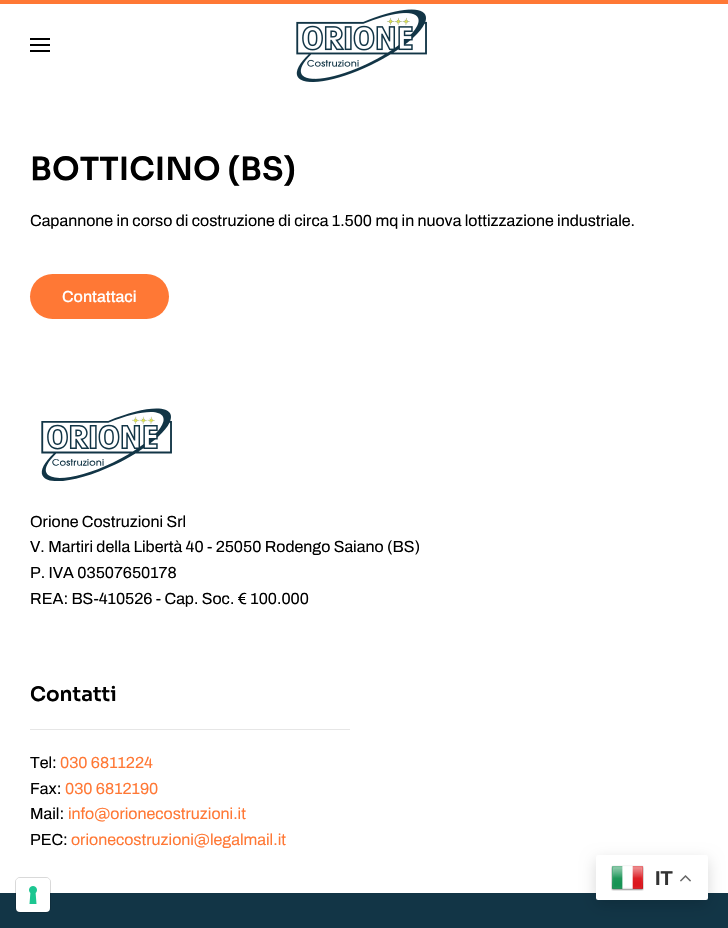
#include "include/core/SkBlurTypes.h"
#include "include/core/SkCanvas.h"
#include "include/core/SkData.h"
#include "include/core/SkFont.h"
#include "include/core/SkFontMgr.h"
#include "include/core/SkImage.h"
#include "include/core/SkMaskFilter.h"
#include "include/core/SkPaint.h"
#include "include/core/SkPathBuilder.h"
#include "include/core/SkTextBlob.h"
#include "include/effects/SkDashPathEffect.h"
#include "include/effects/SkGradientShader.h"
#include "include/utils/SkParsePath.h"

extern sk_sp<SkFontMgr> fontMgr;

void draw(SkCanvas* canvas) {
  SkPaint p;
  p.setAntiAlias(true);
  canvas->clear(SK_ColorWHITE);
  p.setColor(SkColorSetRGB(255, 120, 53));
  canvas->drawRect(SkRect::MakeLTRB(0, 0, 728, 4), p);
  p.setColor(SK_ColorBLACK);
  canvas->drawRect(SkRect::MakeLTRB(30, 38, 50, 40), p);
  canvas->drawRect(SkRect::MakeLTRB(30, 44, 50, 46), p);
  canvas->drawRect(SkRect::MakeLTRB(30, 50, 50, 52), p);
  canvas->drawImageRect(SkImages::DeferredFromEncodedData(SkData::MakeFromFileName("images/1.png")), SkRect::MakeLTRB(296, 9, 427, 82), SkSamplingOptions());
  p.setColor(SkColorSetRGB(255, 120, 53));
  canvas->drawRoundRect(SkRect::MakeLTRB(30, 274, 169, 319), 22.5f, 22.5f, p);
  canvas->drawImageRect(SkImages::DeferredFromEncodedData(SkData::MakeFromFileName("images/2.png")), SkRect::MakeLTRB(41, 408, 172, 481), SkSamplingOptions());
  p.setColor(SkColorSetRGB(230, 230, 230));
  canvas->drawRect(SkRect::MakeLTRB(30, 729, 350, 730), p);
  p.setColor(SkColorSetRGB(18, 53, 70));
  canvas->drawRect(SkRect::MakeLTRB(0, 893, 728, 928), p);
  p.setStyle(SkPaint::kStroke_Style);
  p.setStrokeWidth(1);
  p.setColor(SkColorSetARGB(38, 0, 0, 0));
  canvas->drawRoundRect(SkRect::MakeLTRB(15.5f, 877.5f, 50.5f, 912.5f), 4.5f, 4.5f, p);
  p.setStyle(SkPaint::kFill_Style);
  p.setColor(SK_ColorWHITE);
  canvas->drawRoundRect(SkRect::MakeLTRB(16, 878, 50, 912), 4, 4, p);
  canvas->drawImageRect(SkImages::DeferredFromEncodedData(SkData::MakeFromFileName("images/3.png")), SkRect::MakeLTRB(29, 886, 37, 904), SkSamplingOptions());
  p.setColor(SkColorSetARGB(38, 0, 0, 0));
  p.setMaskFilter(SkMaskFilter::MakeBlur(kNormal_SkBlurStyle, 7.5f));
  canvas->drawRoundRect(SkRect::MakeLTRB(596, 860, 708, 905), 2, 2, p);
  p.setMaskFilter(nullptr);
  p.setColor(SK_ColorWHITE);
  canvas->drawRoundRect(SkRect::MakeLTRB(596, 855, 708, 900), 2, 2, p);
  canvas->drawImageRect(SkImages::DeferredFromEncodedData(SkData::MakeFromFileName("images/4.png")), SkRect::MakeLTRB(611, 865, 644, 891), SkSamplingOptions());
  canvas->drawImageRect(SkImages::DeferredFromEncodedData(SkData::MakeFromFileName("images/5.png")), SkRect::MakeLTRB(680, 875, 691, 882), SkSamplingOptions());
  SkFont font1(fontMgr->matchFamilyStyle("Sora", SkFontStyle(600, SkFontStyle::kNormal_Width, SkFontStyle::kUpright_Slant)), 32);
  font1.setSubpixel(true);
  p.setColor(SK_ColorBLACK);
  canvas->drawString("BOTTICINO (BS)", 30, 180, font1, p);
  SkFont font2(fontMgr->matchFamilyStyle("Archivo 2", SkFontStyle(600, SkFontStyle::kNormal_Width, SkFontStyle::kUpright_Slant)), 16);
  font2.setSubpixel(true);
  canvas->drawString("Capannone in corso di costruzione di circa 1.500 mq in nuova lottizzazione industriale.", 30, 226, font2, p);
  SkFont font3(fontMgr->matchFamilyStyle("Archivo", SkFontStyle(600, SkFontStyle::kNormal_Width, SkFontStyle::kUpright_Slant)), 16);
  font3.setSubpixel(true);
  p.setColor(SK_ColorWHITE);
  canvas->drawString("Contattaci", 62, 302, font3, p);
  p.setColor(SK_ColorBLACK);
  canvas->drawString("Orione Costruzioni Srl", 30, 527, font2, p);
  canvas->drawString("V. Martiri della Libertà 40 - 25050 Rodengo Saiano (BS)", 30, 552, font2, p);
  canvas->drawString("P. IVA 03507650178", 30, 578, font2, p);
  canvas->drawString("REA: BS-410526 - Cap. Soc. € 100.000", 30, 604, font2, p);
  SkFont font4(fontMgr->matchFamilyStyle("Sora", SkFontStyle(600, SkFontStyle::kNormal_Width, SkFontStyle::kUpright_Slant)), 20);
  font4.setSubpixel(true);
  canvas->drawString("Contatti", 30, 701, font4, p);
  canvas->drawString("Tel:", 30, 768, font2, p);
  p.setColor(SkColorSetRGB(255, 120, 53));
  canvas->drawString("030 6811224", 60, 768, font2, p);
  p.setColor(SK_ColorBLACK);
  canvas->drawString("Fax:", 30, 794, font2, p);
  p.setColor(SkColorSetRGB(255, 120, 53));
  canvas->drawString("030 6812190", 65, 794, font2, p);
  p.setColor(SK_ColorBLACK);
  canvas->drawString("Mail:", 30, 819, font2, p);
  p.setColor(SkColorSetRGB(255, 120, 53));
  canvas->drawString("info@orionecostruzioni.it", 68, 819, font2, p);
  p.setColor(SK_ColorBLACK);
  canvas->drawString("PEC:", 30, 845, font2, p);
  p.setColor(SkColorSetRGB(255, 120, 53));
  canvas->drawString("orionecostruzioni@legalmail.it", 71, 845, font2, p);
  SkFont font5(fontMgr->matchFamilyStyle("Liberation Sans", SkFontStyle::Bold()), 20);
  font5.setSubpixel(true);
  p.setColor(SkColorSetRGB(51, 51, 51));
  canvas->drawString("IT", 655, 885, font5, p);
}
